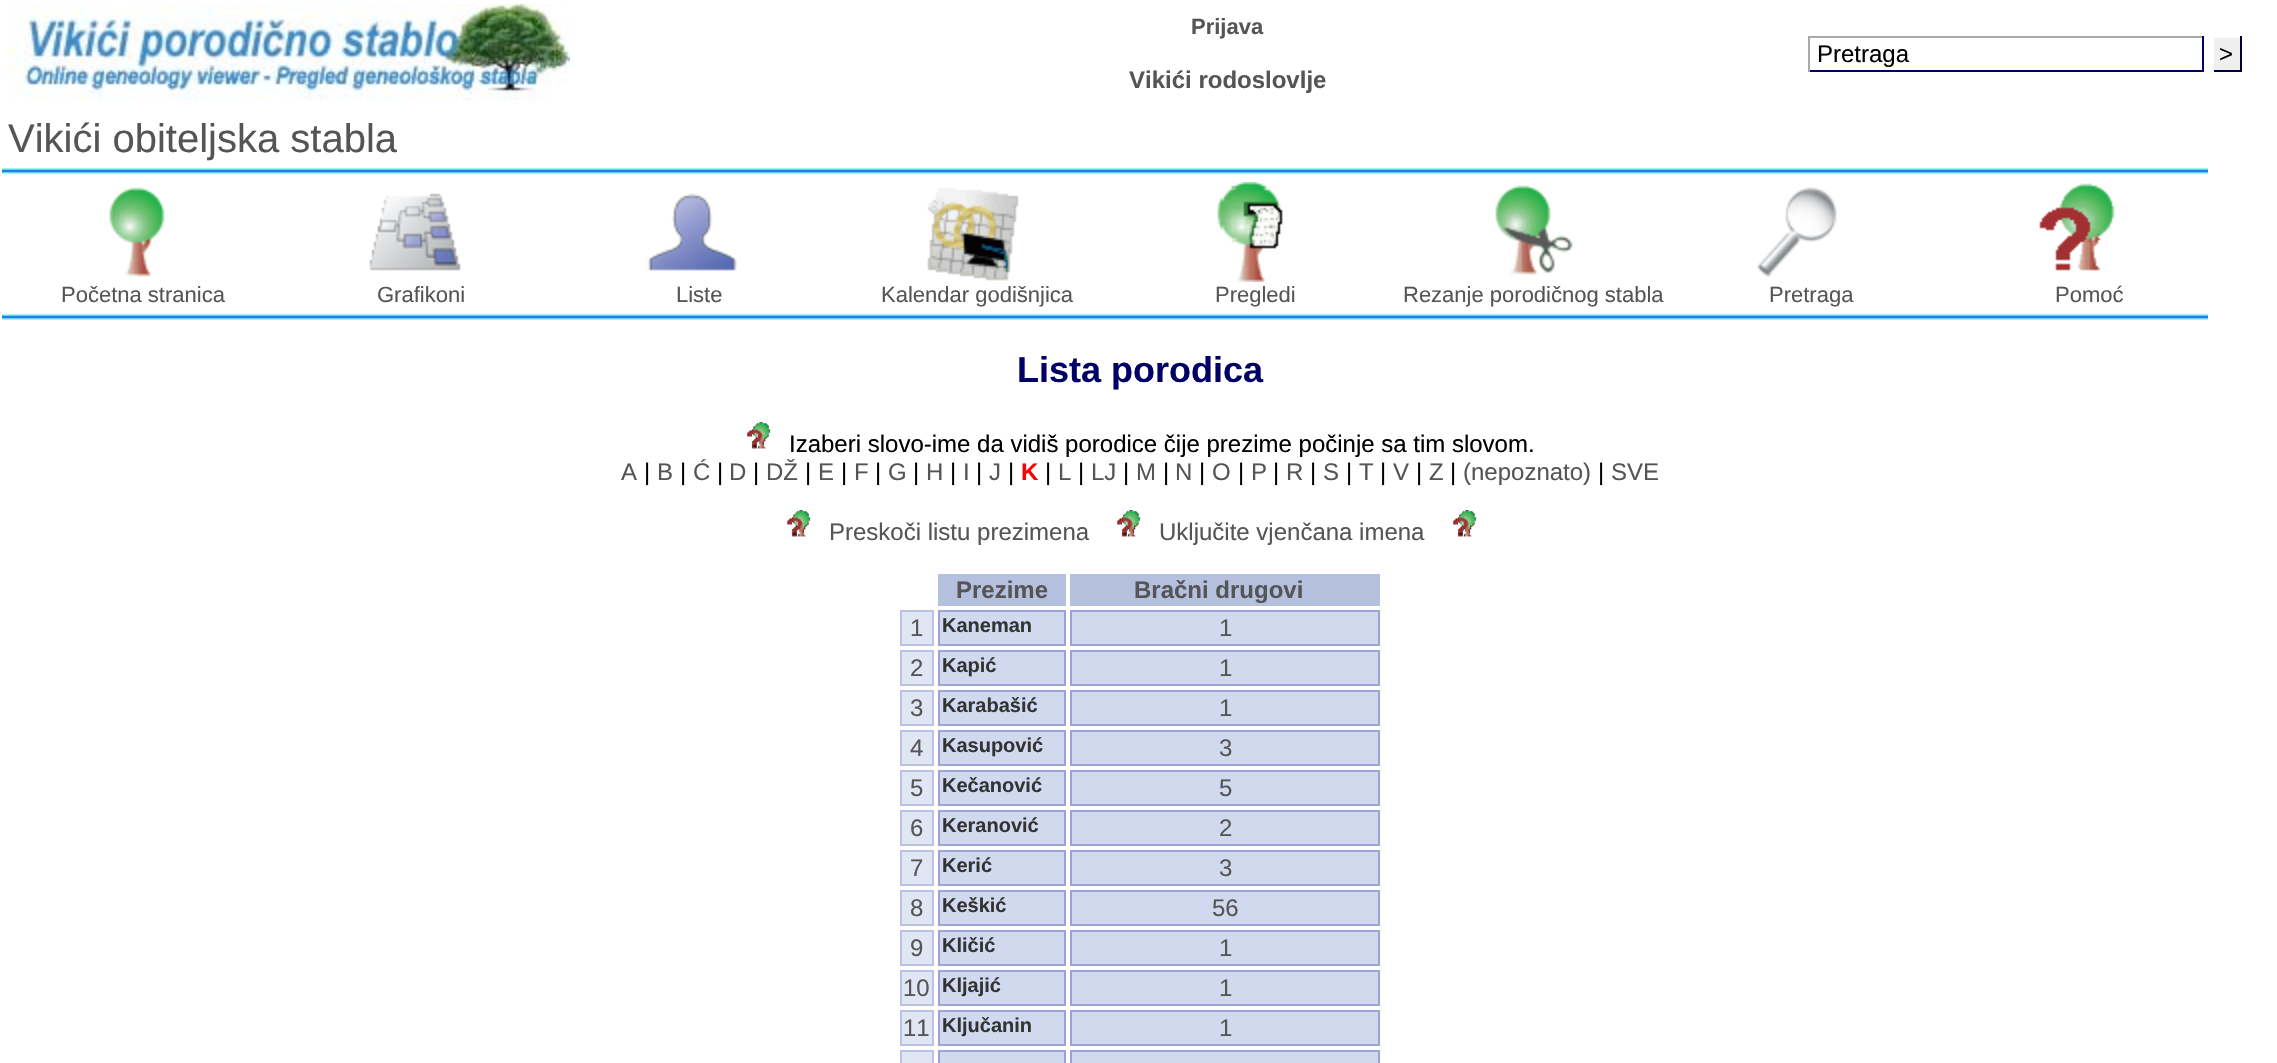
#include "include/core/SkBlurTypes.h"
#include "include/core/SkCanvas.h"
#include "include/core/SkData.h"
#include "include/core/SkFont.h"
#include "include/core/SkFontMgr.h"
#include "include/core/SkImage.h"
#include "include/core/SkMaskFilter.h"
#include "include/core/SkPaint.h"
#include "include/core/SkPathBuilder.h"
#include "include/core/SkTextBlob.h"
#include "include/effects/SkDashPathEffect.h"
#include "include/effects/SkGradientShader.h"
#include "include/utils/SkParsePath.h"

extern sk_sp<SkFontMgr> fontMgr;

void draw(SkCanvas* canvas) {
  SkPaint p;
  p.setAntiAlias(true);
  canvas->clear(SK_ColorWHITE);
  canvas->drawImageRect(SkImages::DeferredFromEncodedData(SkData::MakeFromFileName("images/1.png")), SkRect::MakeLTRB(8, 4, 570, 101), SkSamplingOptions());
  p.setColor(SkColorSetRGB(170, 170, 170));
  canvas->drawRect(SkRect::MakeLTRB(1808, 36, 2204, 38), p);
  p.setColor(SkColorSetRGB(0, 0, 102));
  canvas->drawRect(SkRect::MakeLTRB(2202, 36, 2204, 72), p);
  canvas->drawRect(SkRect::MakeLTRB(1808, 70, 2204, 72), p);
  p.setColor(SkColorSetRGB(170, 170, 170));
  canvas->drawRect(SkRect::MakeLTRB(1808, 36, 1810, 72), p);
  p.setColor(SkColorSetRGB(239, 239, 239));
  canvas->drawRect(SkRect::MakeLTRB(2214, 38, 2240, 70), p);
  p.setColor(SkColorSetRGB(0, 0, 68));
  canvas->drawRect(SkRect::MakeLTRB(2240, 36, 2242, 72), p);
  canvas->drawRect(SkRect::MakeLTRB(2212, 70, 2242, 72), p);
  p.setColor(SK_ColorWHITE);
  canvas->drawRect(SkRect::MakeLTRB(2212, 70, 2214, 72), p);
  canvas->drawImageRect(SkImages::DeferredFromEncodedData(SkData::MakeFromFileName("images/2.png")), SkRect::MakeLTRB(2, 168, 2208, 174), SkSamplingOptions());
  canvas->drawImageRect(SkImages::DeferredFromEncodedData(SkData::MakeFromFileName("images/3.png")), SkRect::MakeLTRB(109, 187, 165, 277), SkSamplingOptions());
  canvas->drawImageRect(SkImages::DeferredFromEncodedData(SkData::MakeFromFileName("images/4.png")), SkRect::MakeLTRB(369, 193, 461, 271), SkSamplingOptions());
  canvas->drawImageRect(SkImages::DeferredFromEncodedData(SkData::MakeFromFileName("images/5.png")), SkRect::MakeLTRB(647, 193, 737, 271), SkSamplingOptions());
  canvas->drawImageRect(SkImages::DeferredFromEncodedData(SkData::MakeFromFileName("images/6.png")), SkRect::MakeLTRB(927, 188, 1019, 281), SkSamplingOptions());
  canvas->drawImageRect(SkImages::DeferredFromEncodedData(SkData::MakeFromFileName("images/7.png")), SkRect::MakeLTRB(1217, 182, 1283, 282), SkSamplingOptions());
  canvas->drawImageRect(SkImages::DeferredFromEncodedData(SkData::MakeFromFileName("images/8.png")), SkRect::MakeLTRB(1495, 185, 1573, 275), SkSamplingOptions());
  canvas->drawImageRect(SkImages::DeferredFromEncodedData(SkData::MakeFromFileName("images/9.png")), SkRect::MakeLTRB(1757, 187, 1837, 277), SkSamplingOptions());
  canvas->drawImageRect(SkImages::DeferredFromEncodedData(SkData::MakeFromFileName("images/10.png")), SkRect::MakeLTRB(2039, 183, 2115, 271), SkSamplingOptions());
  canvas->drawImageRect(SkImages::DeferredFromEncodedData(SkData::MakeFromFileName("images/2.png")), SkRect::MakeLTRB(2, 314, 2208, 320), SkSamplingOptions());
  canvas->drawImageRect(SkImages::DeferredFromEncodedData(SkData::MakeFromFileName("images/11.png")), SkRect::MakeLTRB(747, 422, 771, 449), SkSamplingOptions());
  canvas->drawImageRect(SkImages::DeferredFromEncodedData(SkData::MakeFromFileName("images/12.png")), SkRect::MakeLTRB(787, 510, 811, 537), SkSamplingOptions());
  canvas->drawImageRect(SkImages::DeferredFromEncodedData(SkData::MakeFromFileName("images/13.png")), SkRect::MakeLTRB(1117, 510, 1141, 537), SkSamplingOptions());
  canvas->drawImageRect(SkImages::DeferredFromEncodedData(SkData::MakeFromFileName("images/13.png")), SkRect::MakeLTRB(1453, 510, 1477, 537), SkSamplingOptions());
  p.setColor(SkColorSetRGB(181, 192, 223));
  canvas->drawRect(SkRect::MakeLTRB(938, 574, 1066, 606), p);
  canvas->drawRect(SkRect::MakeLTRB(1070, 574, 1380, 606), p);
  p.setColor(SkColorSetRGB(224, 230, 244));
  canvas->drawRect(SkRect::MakeLTRB(901, 611, 933, 645), p);
  p.setStyle(SkPaint::kStroke_Style);
  p.setStrokeWidth(2);
  p.setColor(SkColorSetRGB(189, 193, 226));
  canvas->drawRect(SkRect::MakeLTRB(901, 611, 933, 645), p);
  p.setStyle(SkPaint::kFill_Style);
  p.setColor(SkColorSetRGB(209, 217, 239));
  canvas->drawRect(SkRect::MakeLTRB(939, 611, 1065, 645), p);
  p.setStyle(SkPaint::kStroke_Style);
  p.setColor(SkColorSetRGB(156, 163, 212));
  canvas->drawRect(SkRect::MakeLTRB(939, 611, 1065, 645), p);
  p.setStyle(SkPaint::kFill_Style);
  p.setColor(SkColorSetRGB(209, 217, 239));
  canvas->drawRect(SkRect::MakeLTRB(1071, 611, 1379, 645), p);
  p.setStyle(SkPaint::kStroke_Style);
  p.setColor(SkColorSetRGB(156, 163, 212));
  canvas->drawRect(SkRect::MakeLTRB(1071, 611, 1379, 645), p);
  p.setStyle(SkPaint::kFill_Style);
  p.setColor(SkColorSetRGB(224, 230, 244));
  canvas->drawRect(SkRect::MakeLTRB(901, 651, 933, 685), p);
  p.setStyle(SkPaint::kStroke_Style);
  p.setColor(SkColorSetRGB(189, 193, 226));
  canvas->drawRect(SkRect::MakeLTRB(901, 651, 933, 685), p);
  p.setStyle(SkPaint::kFill_Style);
  p.setColor(SkColorSetRGB(209, 217, 239));
  canvas->drawRect(SkRect::MakeLTRB(939, 651, 1065, 685), p);
  p.setStyle(SkPaint::kStroke_Style);
  p.setColor(SkColorSetRGB(156, 163, 212));
  canvas->drawRect(SkRect::MakeLTRB(939, 651, 1065, 685), p);
  p.setStyle(SkPaint::kFill_Style);
  p.setColor(SkColorSetRGB(209, 217, 239));
  canvas->drawRect(SkRect::MakeLTRB(1071, 651, 1379, 685), p);
  p.setStyle(SkPaint::kStroke_Style);
  p.setColor(SkColorSetRGB(156, 163, 212));
  canvas->drawRect(SkRect::MakeLTRB(1071, 651, 1379, 685), p);
  p.setStyle(SkPaint::kFill_Style);
  p.setColor(SkColorSetRGB(224, 230, 244));
  canvas->drawRect(SkRect::MakeLTRB(901, 691, 933, 725), p);
  p.setStyle(SkPaint::kStroke_Style);
  p.setColor(SkColorSetRGB(189, 193, 226));
  canvas->drawRect(SkRect::MakeLTRB(901, 691, 933, 725), p);
  p.setStyle(SkPaint::kFill_Style);
  p.setColor(SkColorSetRGB(209, 217, 239));
  canvas->drawRect(SkRect::MakeLTRB(939, 691, 1065, 725), p);
  p.setStyle(SkPaint::kStroke_Style);
  p.setColor(SkColorSetRGB(156, 163, 212));
  canvas->drawRect(SkRect::MakeLTRB(939, 691, 1065, 725), p);
  p.setStyle(SkPaint::kFill_Style);
  p.setColor(SkColorSetRGB(209, 217, 239));
  canvas->drawRect(SkRect::MakeLTRB(1071, 691, 1379, 725), p);
  p.setStyle(SkPaint::kStroke_Style);
  p.setColor(SkColorSetRGB(156, 163, 212));
  canvas->drawRect(SkRect::MakeLTRB(1071, 691, 1379, 725), p);
  p.setStyle(SkPaint::kFill_Style);
  p.setColor(SkColorSetRGB(224, 230, 244));
  canvas->drawRect(SkRect::MakeLTRB(901, 731, 933, 765), p);
  p.setStyle(SkPaint::kStroke_Style);
  p.setColor(SkColorSetRGB(189, 193, 226));
  canvas->drawRect(SkRect::MakeLTRB(901, 731, 933, 765), p);
  p.setStyle(SkPaint::kFill_Style);
  p.setColor(SkColorSetRGB(209, 217, 239));
  canvas->drawRect(SkRect::MakeLTRB(939, 731, 1065, 765), p);
  p.setStyle(SkPaint::kStroke_Style);
  p.setColor(SkColorSetRGB(156, 163, 212));
  canvas->drawRect(SkRect::MakeLTRB(939, 731, 1065, 765), p);
  p.setStyle(SkPaint::kFill_Style);
  p.setColor(SkColorSetRGB(209, 217, 239));
  canvas->drawRect(SkRect::MakeLTRB(1071, 731, 1379, 765), p);
  p.setStyle(SkPaint::kStroke_Style);
  p.setColor(SkColorSetRGB(156, 163, 212));
  canvas->drawRect(SkRect::MakeLTRB(1071, 731, 1379, 765), p);
  p.setStyle(SkPaint::kFill_Style);
  p.setColor(SkColorSetRGB(224, 230, 244));
  canvas->drawRect(SkRect::MakeLTRB(901, 771, 933, 805), p);
  p.setStyle(SkPaint::kStroke_Style);
  p.setColor(SkColorSetRGB(189, 193, 226));
  canvas->drawRect(SkRect::MakeLTRB(901, 771, 933, 805), p);
  p.setStyle(SkPaint::kFill_Style);
  p.setColor(SkColorSetRGB(209, 217, 239));
  canvas->drawRect(SkRect::MakeLTRB(939, 771, 1065, 805), p);
  p.setStyle(SkPaint::kStroke_Style);
  p.setColor(SkColorSetRGB(156, 163, 212));
  canvas->drawRect(SkRect::MakeLTRB(939, 771, 1065, 805), p);
  p.setStyle(SkPaint::kFill_Style);
  p.setColor(SkColorSetRGB(209, 217, 239));
  canvas->drawRect(SkRect::MakeLTRB(1071, 771, 1379, 805), p);
  p.setStyle(SkPaint::kStroke_Style);
  p.setColor(SkColorSetRGB(156, 163, 212));
  canvas->drawRect(SkRect::MakeLTRB(1071, 771, 1379, 805), p);
  p.setStyle(SkPaint::kFill_Style);
  p.setColor(SkColorSetRGB(224, 230, 244));
  canvas->drawRect(SkRect::MakeLTRB(901, 811, 933, 845), p);
  p.setStyle(SkPaint::kStroke_Style);
  p.setColor(SkColorSetRGB(189, 193, 226));
  canvas->drawRect(SkRect::MakeLTRB(901, 811, 933, 845), p);
  p.setStyle(SkPaint::kFill_Style);
  p.setColor(SkColorSetRGB(209, 217, 239));
  canvas->drawRect(SkRect::MakeLTRB(939, 811, 1065, 845), p);
  p.setStyle(SkPaint::kStroke_Style);
  p.setColor(SkColorSetRGB(156, 163, 212));
  canvas->drawRect(SkRect::MakeLTRB(939, 811, 1065, 845), p);
  p.setStyle(SkPaint::kFill_Style);
  p.setColor(SkColorSetRGB(209, 217, 239));
  canvas->drawRect(SkRect::MakeLTRB(1071, 811, 1379, 845), p);
  p.setStyle(SkPaint::kStroke_Style);
  p.setColor(SkColorSetRGB(156, 163, 212));
  canvas->drawRect(SkRect::MakeLTRB(1071, 811, 1379, 845), p);
  p.setStyle(SkPaint::kFill_Style);
  p.setColor(SkColorSetRGB(224, 230, 244));
  canvas->drawRect(SkRect::MakeLTRB(901, 851, 933, 885), p);
  p.setStyle(SkPaint::kStroke_Style);
  p.setColor(SkColorSetRGB(189, 193, 226));
  canvas->drawRect(SkRect::MakeLTRB(901, 851, 933, 885), p);
  p.setStyle(SkPaint::kFill_Style);
  p.setColor(SkColorSetRGB(209, 217, 239));
  canvas->drawRect(SkRect::MakeLTRB(939, 851, 1065, 885), p);
  p.setStyle(SkPaint::kStroke_Style);
  p.setColor(SkColorSetRGB(156, 163, 212));
  canvas->drawRect(SkRect::MakeLTRB(939, 851, 1065, 885), p);
  p.setStyle(SkPaint::kFill_Style);
  p.setColor(SkColorSetRGB(209, 217, 239));
  canvas->drawRect(SkRect::MakeLTRB(1071, 851, 1379, 885), p);
  p.setStyle(SkPaint::kStroke_Style);
  p.setColor(SkColorSetRGB(156, 163, 212));
  canvas->drawRect(SkRect::MakeLTRB(1071, 851, 1379, 885), p);
  p.setStyle(SkPaint::kFill_Style);
  p.setColor(SkColorSetRGB(224, 230, 244));
  canvas->drawRect(SkRect::MakeLTRB(901, 891, 933, 925), p);
  p.setStyle(SkPaint::kStroke_Style);
  p.setColor(SkColorSetRGB(189, 193, 226));
  canvas->drawRect(SkRect::MakeLTRB(901, 891, 933, 925), p);
  p.setStyle(SkPaint::kFill_Style);
  p.setColor(SkColorSetRGB(209, 217, 239));
  canvas->drawRect(SkRect::MakeLTRB(939, 891, 1065, 925), p);
  p.setStyle(SkPaint::kStroke_Style);
  p.setColor(SkColorSetRGB(156, 163, 212));
  canvas->drawRect(SkRect::MakeLTRB(939, 891, 1065, 925), p);
  p.setStyle(SkPaint::kFill_Style);
  p.setColor(SkColorSetRGB(209, 217, 239));
  canvas->drawRect(SkRect::MakeLTRB(1071, 891, 1379, 925), p);
  p.setStyle(SkPaint::kStroke_Style);
  p.setColor(SkColorSetRGB(156, 163, 212));
  canvas->drawRect(SkRect::MakeLTRB(1071, 891, 1379, 925), p);
  p.setStyle(SkPaint::kFill_Style);
  p.setColor(SkColorSetRGB(224, 230, 244));
  canvas->drawRect(SkRect::MakeLTRB(901, 931, 933, 965), p);
  p.setStyle(SkPaint::kStroke_Style);
  p.setColor(SkColorSetRGB(189, 193, 226));
  canvas->drawRect(SkRect::MakeLTRB(901, 931, 933, 965), p);
  p.setStyle(SkPaint::kFill_Style);
  p.setColor(SkColorSetRGB(209, 217, 239));
  canvas->drawRect(SkRect::MakeLTRB(939, 931, 1065, 965), p);
  p.setStyle(SkPaint::kStroke_Style);
  p.setColor(SkColorSetRGB(156, 163, 212));
  canvas->drawRect(SkRect::MakeLTRB(939, 931, 1065, 965), p);
  p.setStyle(SkPaint::kFill_Style);
  p.setColor(SkColorSetRGB(209, 217, 239));
  canvas->drawRect(SkRect::MakeLTRB(1071, 931, 1379, 965), p);
  p.setStyle(SkPaint::kStroke_Style);
  p.setColor(SkColorSetRGB(156, 163, 212));
  canvas->drawRect(SkRect::MakeLTRB(1071, 931, 1379, 965), p);
  p.setStyle(SkPaint::kFill_Style);
  p.setColor(SkColorSetRGB(224, 230, 244));
  canvas->drawRect(SkRect::MakeLTRB(901, 971, 933, 1005), p);
  p.setStyle(SkPaint::kStroke_Style);
  p.setColor(SkColorSetRGB(189, 193, 226));
  canvas->drawRect(SkRect::MakeLTRB(901, 971, 933, 1005), p);
  p.setStyle(SkPaint::kFill_Style);
  p.setColor(SkColorSetRGB(209, 217, 239));
  canvas->drawRect(SkRect::MakeLTRB(939, 971, 1065, 1005), p);
  p.setStyle(SkPaint::kStroke_Style);
  p.setColor(SkColorSetRGB(156, 163, 212));
  canvas->drawRect(SkRect::MakeLTRB(939, 971, 1065, 1005), p);
  p.setStyle(SkPaint::kFill_Style);
  p.setColor(SkColorSetRGB(209, 217, 239));
  canvas->drawRect(SkRect::MakeLTRB(1071, 971, 1379, 1005), p);
  p.setStyle(SkPaint::kStroke_Style);
  p.setColor(SkColorSetRGB(156, 163, 212));
  canvas->drawRect(SkRect::MakeLTRB(1071, 971, 1379, 1005), p);
  p.setStyle(SkPaint::kFill_Style);
  p.setColor(SkColorSetRGB(224, 230, 244));
  canvas->drawRect(SkRect::MakeLTRB(901, 1011, 933, 1045), p);
  p.setStyle(SkPaint::kStroke_Style);
  p.setColor(SkColorSetRGB(189, 193, 226));
  canvas->drawRect(SkRect::MakeLTRB(901, 1011, 933, 1045), p);
  p.setStyle(SkPaint::kFill_Style);
  p.setColor(SkColorSetRGB(209, 217, 239));
  canvas->drawRect(SkRect::MakeLTRB(939, 1011, 1065, 1045), p);
  p.setStyle(SkPaint::kStroke_Style);
  p.setColor(SkColorSetRGB(156, 163, 212));
  canvas->drawRect(SkRect::MakeLTRB(939, 1011, 1065, 1045), p);
  p.setStyle(SkPaint::kFill_Style);
  p.setColor(SkColorSetRGB(209, 217, 239));
  canvas->drawRect(SkRect::MakeLTRB(1071, 1011, 1379, 1045), p);
  p.setStyle(SkPaint::kStroke_Style);
  p.setColor(SkColorSetRGB(156, 163, 212));
  canvas->drawRect(SkRect::MakeLTRB(1071, 1011, 1379, 1045), p);
  p.setStyle(SkPaint::kFill_Style);
  p.setColor(SkColorSetRGB(224, 230, 244));
  canvas->drawRect(SkRect::MakeLTRB(901, 1051, 933, 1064), p);
  p.setStyle(SkPaint::kStroke_Style);
  p.setColor(SkColorSetRGB(189, 193, 226));
  canvas->drawRect(SkRect::MakeLTRB(901, 1051, 933, 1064), p);
  p.setStyle(SkPaint::kFill_Style);
  p.setColor(SkColorSetRGB(209, 217, 239));
  canvas->drawRect(SkRect::MakeLTRB(939, 1051, 1065, 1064), p);
  p.setStyle(SkPaint::kStroke_Style);
  p.setColor(SkColorSetRGB(156, 163, 212));
  canvas->drawRect(SkRect::MakeLTRB(939, 1051, 1065, 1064), p);
  p.setStyle(SkPaint::kFill_Style);
  p.setColor(SkColorSetRGB(209, 217, 239));
  canvas->drawRect(SkRect::MakeLTRB(1071, 1051, 1379, 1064), p);
  p.setStyle(SkPaint::kStroke_Style);
  p.setColor(SkColorSetRGB(156, 163, 212));
  canvas->drawRect(SkRect::MakeLTRB(1071, 1051, 1379, 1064), p);
  SkFont font1(fontMgr->matchFamilyStyle("Liberation Sans", SkFontStyle::Bold()), 22);
  font1.setSubpixel(true);
  p.setStyle(SkPaint::kFill_Style);
  p.setColor(SkColorSetRGB(85, 85, 85));
  canvas->drawString("Prijava", 1191, 34, font1, p);
  SkFont font2(fontMgr->matchFamilyStyle("Liberation Sans", SkFontStyle::Bold()), 24);
  font2.setSubpixel(true);
  canvas->drawString("Vikići rodoslovlje", 1129, 88, font2, p);
  SkFont font3(fontMgr->matchFamilyStyle("Liberation Sans", SkFontStyle::Normal()), 24);
  font3.setSubpixel(true);
  p.setColor(SK_ColorBLACK);
  canvas->drawString("Pretraga", 1817, 62, font3, p);
  canvas->drawString(">", 2219, 62, font3, p);
  SkFont font4(fontMgr->matchFamilyStyle("Liberation Sans", SkFontStyle::Normal()), 40);
  font4.setSubpixel(true);
  p.setColor(SkColorSetRGB(85, 85, 85));
  canvas->drawString("Vikići obiteljska stabla", 8, 152, font4, p);
  SkFont font5(fontMgr->matchFamilyStyle("Liberation Sans", SkFontStyle::Normal()), 22);
  font5.setSubpixel(true);
  canvas->drawString("Početna stranica", 61, 302, font5, p);
  canvas->drawString("Grafikoni", 377, 302, font5, p);
  canvas->drawString("Liste", 676, 302, font5, p);
  canvas->drawString("Kalendar godišnjica", 881, 302, font5, p);
  canvas->drawString("Pregledi", 1215, 302, font5, p);
  canvas->drawString("Rezanje porodičnog stabla", 1403, 302, font5, p);
  canvas->drawString("Pretraga", 1769, 302, font5, p);
  canvas->drawString("Pomoć", 2055, 302, font5, p);
  SkFont font6(fontMgr->matchFamilyStyle("Liberation Sans", SkFontStyle::Bold()), 36);
  font6.setSubpixel(true);
  p.setColor(SkColorSetRGB(0, 0, 102));
  canvas->drawString("Lista porodica", 1017, 382, font6, p);
  p.setColor(SK_ColorBLACK);
  canvas->drawString("Izaberi slovo-ime da vidiš porodice čije prezime počinje sa tim slovom.", 789, 452, font3, p);
  p.setColor(SkColorSetRGB(85, 85, 85));
  canvas->drawString("A", 621, 480, font3, p);
  p.setColor(SK_ColorBLACK);
  canvas->drawString("|", 644, 480, font3, p);
  p.setColor(SkColorSetRGB(85, 85, 85));
  canvas->drawString("B", 657, 480, font3, p);
  p.setColor(SK_ColorBLACK);
  canvas->drawString("|", 680, 480, font3, p);
  p.setColor(SkColorSetRGB(85, 85, 85));
  canvas->drawString("Ć", 693, 480, font3, p);
  p.setColor(SK_ColorBLACK);
  canvas->drawString("|", 717, 480, font3, p);
  p.setColor(SkColorSetRGB(85, 85, 85));
  canvas->drawString("D", 729, 480, font3, p);
  p.setColor(SK_ColorBLACK);
  canvas->drawString("|", 753, 480, font3, p);
  p.setColor(SkColorSetRGB(85, 85, 85));
  canvas->drawString("DŽ", 766, 480, font3, p);
  p.setColor(SK_ColorBLACK);
  canvas->drawString("|", 805, 480, font3, p);
  p.setColor(SkColorSetRGB(85, 85, 85));
  canvas->drawString("E", 818, 480, font3, p);
  p.setColor(SK_ColorBLACK);
  canvas->drawString("|", 841, 480, font3, p);
  p.setColor(SkColorSetRGB(85, 85, 85));
  canvas->drawString("F", 854, 480, font3, p);
  p.setColor(SK_ColorBLACK);
  canvas->drawString("|", 875, 480, font3, p);
  p.setColor(SkColorSetRGB(85, 85, 85));
  canvas->drawString("G", 888, 480, font3, p);
  p.setColor(SK_ColorBLACK);
  canvas->drawString("|", 913, 480, font3, p);
  p.setColor(SkColorSetRGB(85, 85, 85));
  canvas->drawString("H", 926, 480, font3, p);
  p.setColor(SK_ColorBLACK);
  canvas->drawString("|", 950, 480, font3, p);
  p.setColor(SkColorSetRGB(85, 85, 85));
  canvas->drawString("I", 963, 480, font3, p);
  p.setColor(SK_ColorBLACK);
  canvas->drawString("|", 976, 480, font3, p);
  p.setColor(SkColorSetRGB(85, 85, 85));
  canvas->drawString("J", 989, 480, font3, p);
  p.setColor(SK_ColorBLACK);
  canvas->drawString("|", 1008, 480, font3, p);
  p.setColor(SkColorSetRGB(255, 0, 0));
  canvas->drawString("K", 1021, 480, font2, p);
  p.setColor(SK_ColorBLACK);
  canvas->drawString("|", 1045, 480, font3, p);
  p.setColor(SkColorSetRGB(85, 85, 85));
  canvas->drawString("L", 1058, 480, font3, p);
  p.setColor(SK_ColorBLACK);
  canvas->drawString("|", 1078, 480, font3, p);
  p.setColor(SkColorSetRGB(85, 85, 85));
  canvas->drawString("LJ", 1091, 480, font3, p);
  p.setColor(SK_ColorBLACK);
  canvas->drawString("|", 1123, 480, font3, p);
  p.setColor(SkColorSetRGB(85, 85, 85));
  canvas->drawString("M", 1136, 480, font3, p);
  p.setColor(SK_ColorBLACK);
  canvas->drawString("|", 1163, 480, font3, p);
  p.setColor(SkColorSetRGB(85, 85, 85));
  canvas->drawString("N", 1175, 480, font3, p);
  p.setColor(SK_ColorBLACK);
  canvas->drawString("|", 1199, 480, font3, p);
  p.setColor(SkColorSetRGB(85, 85, 85));
  canvas->drawString("O", 1212, 480, font3, p);
  p.setColor(SK_ColorBLACK);
  canvas->drawString("|", 1238, 480, font3, p);
  p.setColor(SkColorSetRGB(85, 85, 85));
  canvas->drawString("P", 1251, 480, font3, p);
  p.setColor(SK_ColorBLACK);
  canvas->drawString("|", 1273, 480, font3, p);
  p.setColor(SkColorSetRGB(85, 85, 85));
  canvas->drawString("R", 1286, 480, font3, p);
  p.setColor(SK_ColorBLACK);
  canvas->drawString("|", 1310, 480, font3, p);
  p.setColor(SkColorSetRGB(85, 85, 85));
  canvas->drawString("S", 1323, 480, font3, p);
  p.setColor(SK_ColorBLACK);
  canvas->drawString("|", 1346, 480, font3, p);
  p.setColor(SkColorSetRGB(85, 85, 85));
  canvas->drawString("T", 1359, 480, font3, p);
  p.setColor(SK_ColorBLACK);
  canvas->drawString("|", 1380, 480, font3, p);
  p.setColor(SkColorSetRGB(85, 85, 85));
  canvas->drawString("V", 1393, 480, font3, p);
  p.setColor(SK_ColorBLACK);
  canvas->drawString("|", 1416, 480, font3, p);
  p.setColor(SkColorSetRGB(85, 85, 85));
  canvas->drawString("Z", 1429, 480, font3, p);
  p.setColor(SK_ColorBLACK);
  canvas->drawString("|", 1450, 480, font3, p);
  p.setColor(SkColorSetRGB(85, 85, 85));
  canvas->drawString("(nepoznato)", 1463, 480, font3, p);
  p.setColor(SK_ColorBLACK);
  canvas->drawString("|", 1598, 480, font3, p);
  p.setColor(SkColorSetRGB(85, 85, 85));
  canvas->drawString("SVE", 1611, 480, font3, p);
  canvas->drawString("Preskoči listu prezimena", 829, 540, font3, p);
  canvas->drawString("Uključite vjenčana imena", 1159, 540, font3, p);
  canvas->drawString("Prezime", 956, 598, font2, p);
  canvas->drawString("Bračni drugovi", 1134, 598, font2, p);
  canvas->drawString("1", 910, 636, font3, p);
  SkFont font7(fontMgr->matchFamilyStyle("Liberation Sans", SkFontStyle::Bold()), 20);
  font7.setSubpixel(true);
  p.setColor(SkColorSetRGB(51, 51, 51));
  canvas->drawString("Kaneman", 942, 632, font7, p);
  p.setColor(SkColorSetRGB(85, 85, 85));
  canvas->drawString("1", 1219, 636, font3, p);
  canvas->drawString("2", 910, 676, font3, p);
  p.setColor(SkColorSetRGB(51, 51, 51));
  canvas->drawString("Kapić", 942, 672, font7, p);
  p.setColor(SkColorSetRGB(85, 85, 85));
  canvas->drawString("1", 1219, 676, font3, p);
  canvas->drawString("3", 910, 716, font3, p);
  p.setColor(SkColorSetRGB(51, 51, 51));
  canvas->drawString("Karabašić", 942, 712, font7, p);
  p.setColor(SkColorSetRGB(85, 85, 85));
  canvas->drawString("1", 1219, 716, font3, p);
  canvas->drawString("4", 910, 756, font3, p);
  p.setColor(SkColorSetRGB(51, 51, 51));
  canvas->drawString("Kasupović", 942, 752, font7, p);
  p.setColor(SkColorSetRGB(85, 85, 85));
  canvas->drawString("3", 1219, 756, font3, p);
  canvas->drawString("5", 910, 796, font3, p);
  p.setColor(SkColorSetRGB(51, 51, 51));
  canvas->drawString("Kečanović", 942, 792, font7, p);
  p.setColor(SkColorSetRGB(85, 85, 85));
  canvas->drawString("5", 1219, 796, font3, p);
  canvas->drawString("6", 910, 836, font3, p);
  p.setColor(SkColorSetRGB(51, 51, 51));
  canvas->drawString("Keranović", 942, 832, font7, p);
  p.setColor(SkColorSetRGB(85, 85, 85));
  canvas->drawString("2", 1219, 836, font3, p);
  canvas->drawString("7", 910, 876, font3, p);
  p.setColor(SkColorSetRGB(51, 51, 51));
  canvas->drawString("Kerić", 942, 872, font7, p);
  p.setColor(SkColorSetRGB(85, 85, 85));
  canvas->drawString("3", 1219, 876, font3, p);
  canvas->drawString("8", 910, 916, font3, p);
  p.setColor(SkColorSetRGB(51, 51, 51));
  canvas->drawString("Keškić", 942, 912, font7, p);
  p.setColor(SkColorSetRGB(85, 85, 85));
  canvas->drawString("56", 1212, 916, font3, p);
  canvas->drawString("9", 910, 956, font3, p);
  p.setColor(SkColorSetRGB(51, 51, 51));
  canvas->drawString("Kličić", 942, 952, font7, p);
  p.setColor(SkColorSetRGB(85, 85, 85));
  canvas->drawString("1", 1219, 956, font3, p);
  canvas->drawString("10", 903, 996, font3, p);
  p.setColor(SkColorSetRGB(51, 51, 51));
  canvas->drawString("Kljajić", 942, 992, font7, p);
  p.setColor(SkColorSetRGB(85, 85, 85));
  canvas->drawString("1", 1219, 996, font3, p);
  canvas->drawString("11", 903, 1036, font3, p);
  p.setColor(SkColorSetRGB(51, 51, 51));
  canvas->drawString("Ključanin", 942, 1032, font7, p);
  p.setColor(SkColorSetRGB(85, 85, 85));
  canvas->drawString("1", 1219, 1036, font3, p);
}
